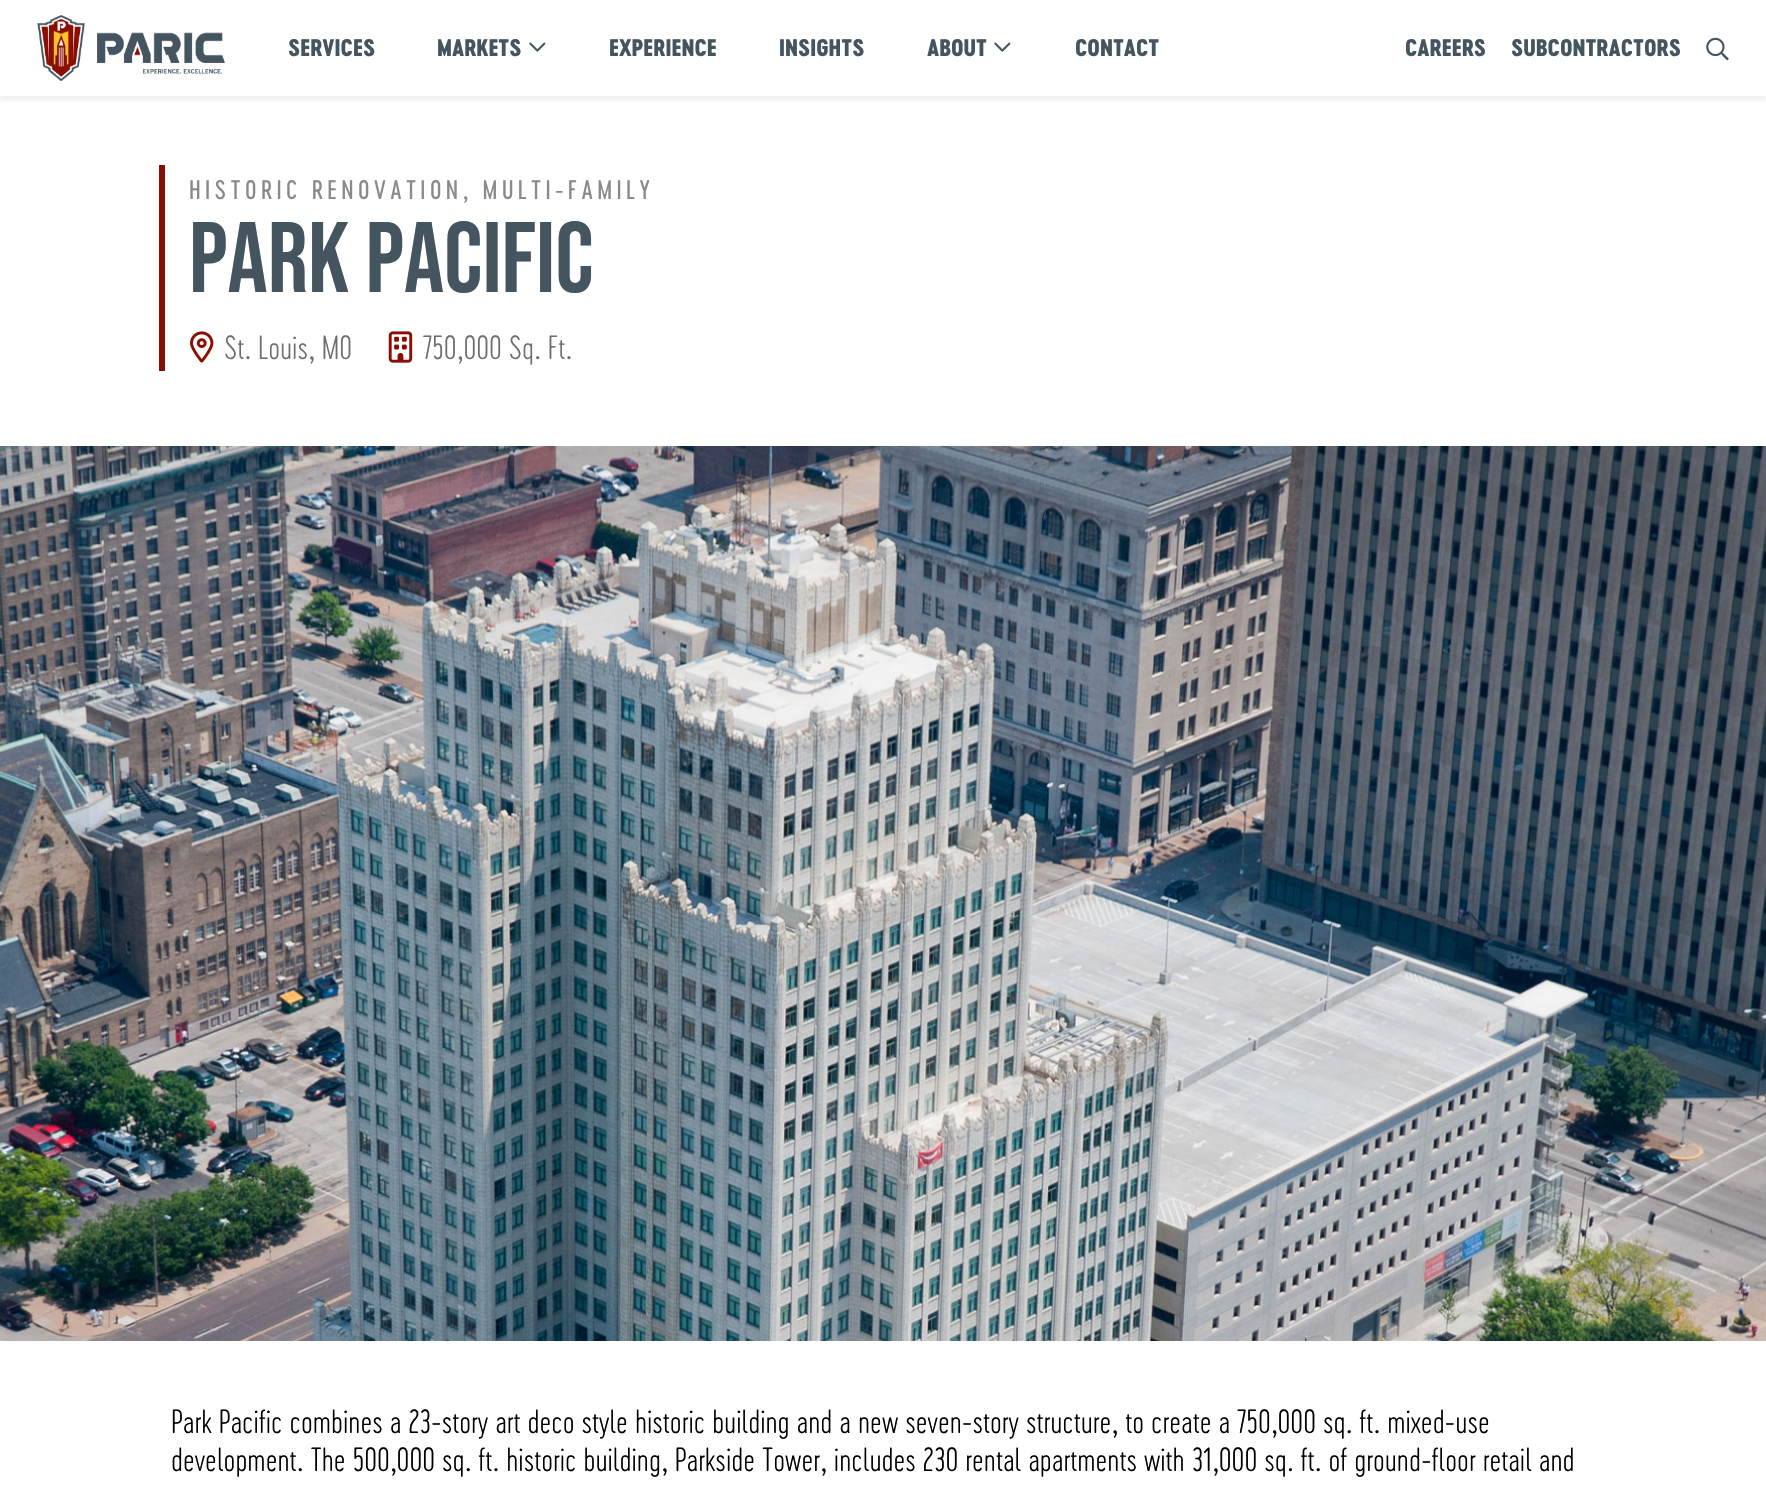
#include "include/core/SkBlurTypes.h"
#include "include/core/SkCanvas.h"
#include "include/core/SkData.h"
#include "include/core/SkFont.h"
#include "include/core/SkFontMgr.h"
#include "include/core/SkImage.h"
#include "include/core/SkMaskFilter.h"
#include "include/core/SkPaint.h"
#include "include/core/SkPathBuilder.h"
#include "include/core/SkTextBlob.h"
#include "include/effects/SkDashPathEffect.h"
#include "include/effects/SkGradientShader.h"
#include "include/utils/SkParsePath.h"

extern sk_sp<SkFontMgr> fontMgr;

void draw(SkCanvas* canvas) {
  SkPaint p;
  p.setAntiAlias(true);
  auto spacedText = [&](const char* s, float x, float y, const SkFont& font, const SkPaint& ink, float letter, float word) {
    std::vector<SkGlyphID> glyphs(font.countText(s, strlen(s), SkTextEncoding::kUTF8));
    std::vector<float> xs(glyphs.size());
    font.textToGlyphs(s, strlen(s), SkTextEncoding::kUTF8, glyphs);
    font.getXPos(glyphs, xs, x);
    float extra = 0;
    for (size_t i = 0; i < glyphs.size(); i++) {
      xs[i] += extra;
      extra += letter + word * (glyphs[i] == font.unicharToGlyph(' '));
    }
    canvas->drawTextBlob(SkTextBlob::MakeFromPosHGlyphs(glyphs, xs, y, font), 0, 0, ink);
  };
  canvas->clear(SK_ColorWHITE);
  canvas->save();
  canvas->clipRect(SkRect::MakeLTRB(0, 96, 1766, 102));
  p.setColor(SkColorSetARGB(13, 0, 0, 0));
  p.setMaskFilter(SkMaskFilter::MakeBlur(kNormal_SkBlurStyle, 2.5f));
  canvas->drawRect(SkRect::MakeLTRB(0, 5, 1766, 101), p);
  p.setMaskFilter(nullptr);
  canvas->restore();
  canvas->drawImageRect(SkImages::DeferredFromEncodedData(SkData::MakeFromFileName("images/1.png")), SkRect::MakeLTRB(37, 15, 225, 82), SkSamplingOptions());
  canvas->drawImageRect(SkImages::DeferredFromEncodedData(SkData::MakeFromFileName("images/2.png")), SkRect::MakeLTRB(529, 42, 546, 52), SkSamplingOptions());
  canvas->drawImageRect(SkImages::DeferredFromEncodedData(SkData::MakeFromFileName("images/2.png")), SkRect::MakeLTRB(994, 42, 1011, 52), SkSamplingOptions());
  canvas->drawImageRect(SkImages::DeferredFromEncodedData(SkData::MakeFromFileName("images/3.png")), SkRect::MakeLTRB(1706, 37, 1729, 61), SkSamplingOptions());
  p.setColor(SkColorSetRGB(139, 14, 4));
  canvas->drawRect(SkRect::MakeLTRB(159, 165, 165, 371), p);
  canvas->drawImageRect(SkImages::DeferredFromEncodedData(SkData::MakeFromFileName("images/4.png")), SkRect::MakeLTRB(190, 331, 214, 363), SkSamplingOptions());
  canvas->drawImageRect(SkImages::DeferredFromEncodedData(SkData::MakeFromFileName("images/5.png")), SkRect::MakeLTRB(388, 331, 413, 363), SkSamplingOptions());
  canvas->drawImageRect(SkImages::DeferredFromEncodedData(SkData::MakeFromFileName("images/6.png")), SkRect::MakeLTRB(0, 446, 1766, 1341), SkSamplingOptions());
  SkFont font1(fontMgr->matchFamilyStyle("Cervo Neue", SkFontStyle(800, SkFontStyle::kNormal_Width, SkFontStyle::kUpright_Slant)), 22.5f);
  font1.setSubpixel(true);
  p.setColor(SkColorSetRGB(69, 85, 96));
  canvas->drawString("SERVICES", 288, 56, font1, p);
  canvas->drawString("MARKETS", 437, 56, font1, p);
  canvas->drawString("EXPERIENCE", 609, 56, font1, p);
  canvas->drawString("INSIGHTS", 779, 56, font1, p);
  canvas->drawString("ABOUT", 927, 56, font1, p);
  canvas->drawString("CONTACT", 1075, 56, font1, p);
  canvas->drawString("CAREERS", 1405, 56, font1, p);
  canvas->drawString("SUBCONTRACTORS", 1511, 56, font1, p);
  SkFont font2(fontMgr->matchFamilyStyle("Cervo Neue", SkFontStyle::Normal()), 25);
  font2.setSubpixel(true);
  p.setColor(SkColorSetRGB(138, 138, 138));
  spacedText("HISTORIC RENOVATION, MULTI-FAMILY", 189, 199, font2, p, 4.4f, 0);
  SkFont font3(fontMgr->matchFamilyStyle("Bebas Neue", SkFontStyle::Normal()), 100);
  font3.setSubpixel(true);
  p.setColor(SkColorSetRGB(69, 85, 96));
  canvas->drawString("PARK PACIFIC", 189, 292, font3, p);
  SkFont font4(fontMgr->matchFamilyStyle("Cervo Neue", SkFontStyle(100, SkFontStyle::kNormal_Width, SkFontStyle::kUpright_Slant)), 31.25f);
  font4.setSubpixel(true);
  p.setColor(SkColorSetRGB(109, 109, 109));
  canvas->drawString("St. Louis, MO", 224, 359, font4, p);
  canvas->drawString("750,000 Sq. Ft.", 423, 359, font4, p);
  p.setColor(SK_ColorBLACK);
  canvas->drawString("Park Pacific combines a 23-story art deco style historic building and a new seven-story structure, to create a 750,000 sq. ft. mixed-use", 171, 1433, font4, p);
  canvas->drawString("development. The 500,000 sq. ft. historic building, Parkside Tower, includes 230 rental apartments with 31,000 sq. ft. of ground-floor retail and", 171, 1471, font4, p);
}
